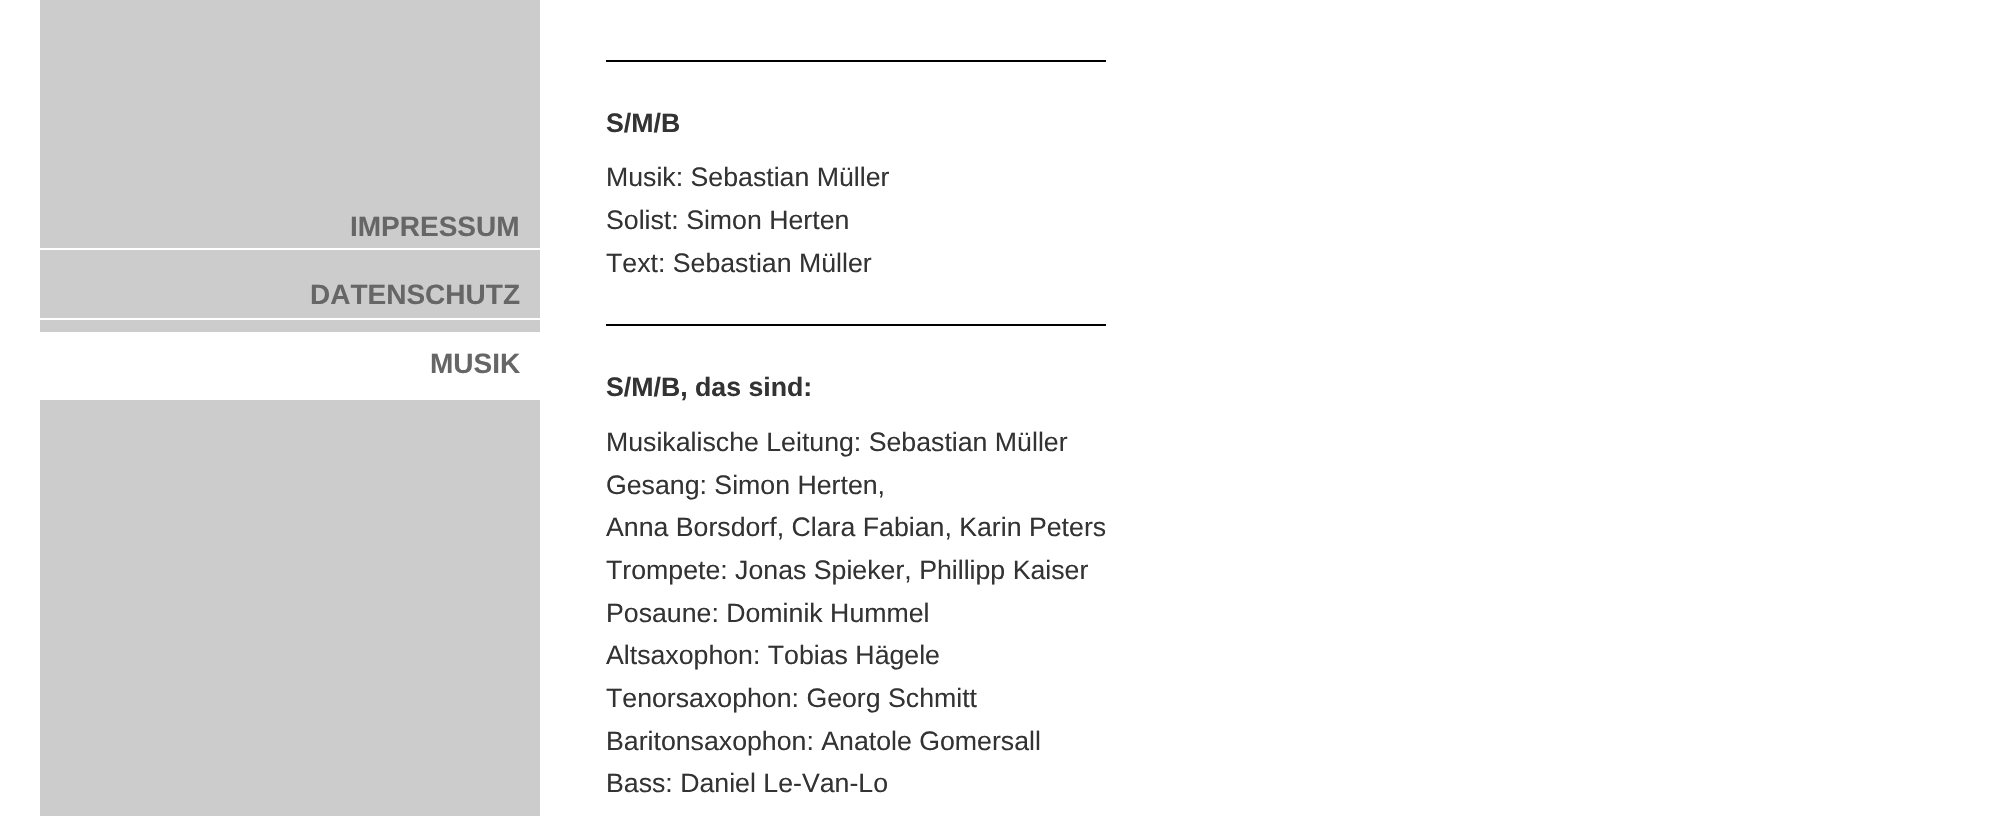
#include "include/core/SkBlurTypes.h"
#include "include/core/SkCanvas.h"
#include "include/core/SkData.h"
#include "include/core/SkFont.h"
#include "include/core/SkFontMgr.h"
#include "include/core/SkImage.h"
#include "include/core/SkMaskFilter.h"
#include "include/core/SkPaint.h"
#include "include/core/SkPathBuilder.h"
#include "include/core/SkTextBlob.h"
#include "include/effects/SkDashPathEffect.h"
#include "include/effects/SkGradientShader.h"
#include "include/utils/SkParsePath.h"

extern sk_sp<SkFontMgr> fontMgr;

void draw(SkCanvas* canvas) {
  SkPaint p;
  p.setAntiAlias(true);
  canvas->clear(SK_ColorWHITE);
  p.setColor(SkColorSetRGB(204, 204, 204));
  canvas->drawRect(SkRect::MakeLTRB(40, 0, 540, 816), p);
  p.setColor(SK_ColorWHITE);
  canvas->drawRect(SkRect::MakeLTRB(40, 248, 540, 250), p);
  canvas->drawRect(SkRect::MakeLTRB(40, 318, 540, 320), p);
  canvas->drawRect(SkRect::MakeLTRB(40, 332, 540, 400), p);
  p.setColor(SK_ColorBLACK);
  canvas->drawRect(SkRect::MakeLTRB(606, 60, 1106, 62), p);
  canvas->drawRect(SkRect::MakeLTRB(606, 324, 1106, 326), p);
  SkFont font1(fontMgr->matchFamilyStyle("Liberation Sans", SkFontStyle::Bold()), 28);
  font1.setSubpixel(true);
  p.setColor(SkColorSetRGB(102, 102, 102));
  canvas->drawString("IMPRESSUM", 350, 236, font1, p);
  canvas->drawString("DATENSCHUTZ", 310, 304, font1, p);
  canvas->drawString("MUSIK", 430, 373, font1, p);
  SkFont font2(fontMgr->matchFamilyStyle("Liberation Sans", SkFontStyle::Bold()), 26.7f);
  font2.setSubpixel(true);
  p.setColor(SkColorSetRGB(51, 51, 51));
  canvas->drawString("S/M/B", 606, 132, font2, p);
  SkFont font3(fontMgr->matchFamilyStyle("Liberation Sans", SkFontStyle::Normal()), 26.7f);
  font3.setSubpixel(true);
  canvas->drawString("Musik: Sebastian Müller", 606, 186, font3, p);
  canvas->drawString("Solist: Simon Herten", 606, 229, font3, p);
  canvas->drawString("Text: Sebastian Müller", 606, 272, font3, p);
  canvas->drawString("S/M/B, das sind:", 606, 396, font2, p);
  canvas->drawString("Musikalische Leitung: Sebastian Müller", 606, 451, font3, p);
  canvas->drawString("Gesang: Simon Herten,", 606, 494, font3, p);
  canvas->drawString("Anna Borsdorf, Clara Fabian, Karin Peters", 606, 536, font3, p);
  canvas->drawString("Trompete: Jonas Spieker, Phillipp Kaiser", 606, 579, font3, p);
  canvas->drawString("Posaune: Dominik Hummel", 606, 622, font3, p);
  canvas->drawString("Altsaxophon: Tobias Hägele", 606, 664, font3, p);
  canvas->drawString("Tenorsaxophon: Georg Schmitt", 606, 707, font3, p);
  canvas->drawString("Baritonsaxophon: Anatole Gomersall", 606, 750, font3, p);
  canvas->drawString("Bass: Daniel Le-Van-Lo", 606, 792, font3, p);
}
